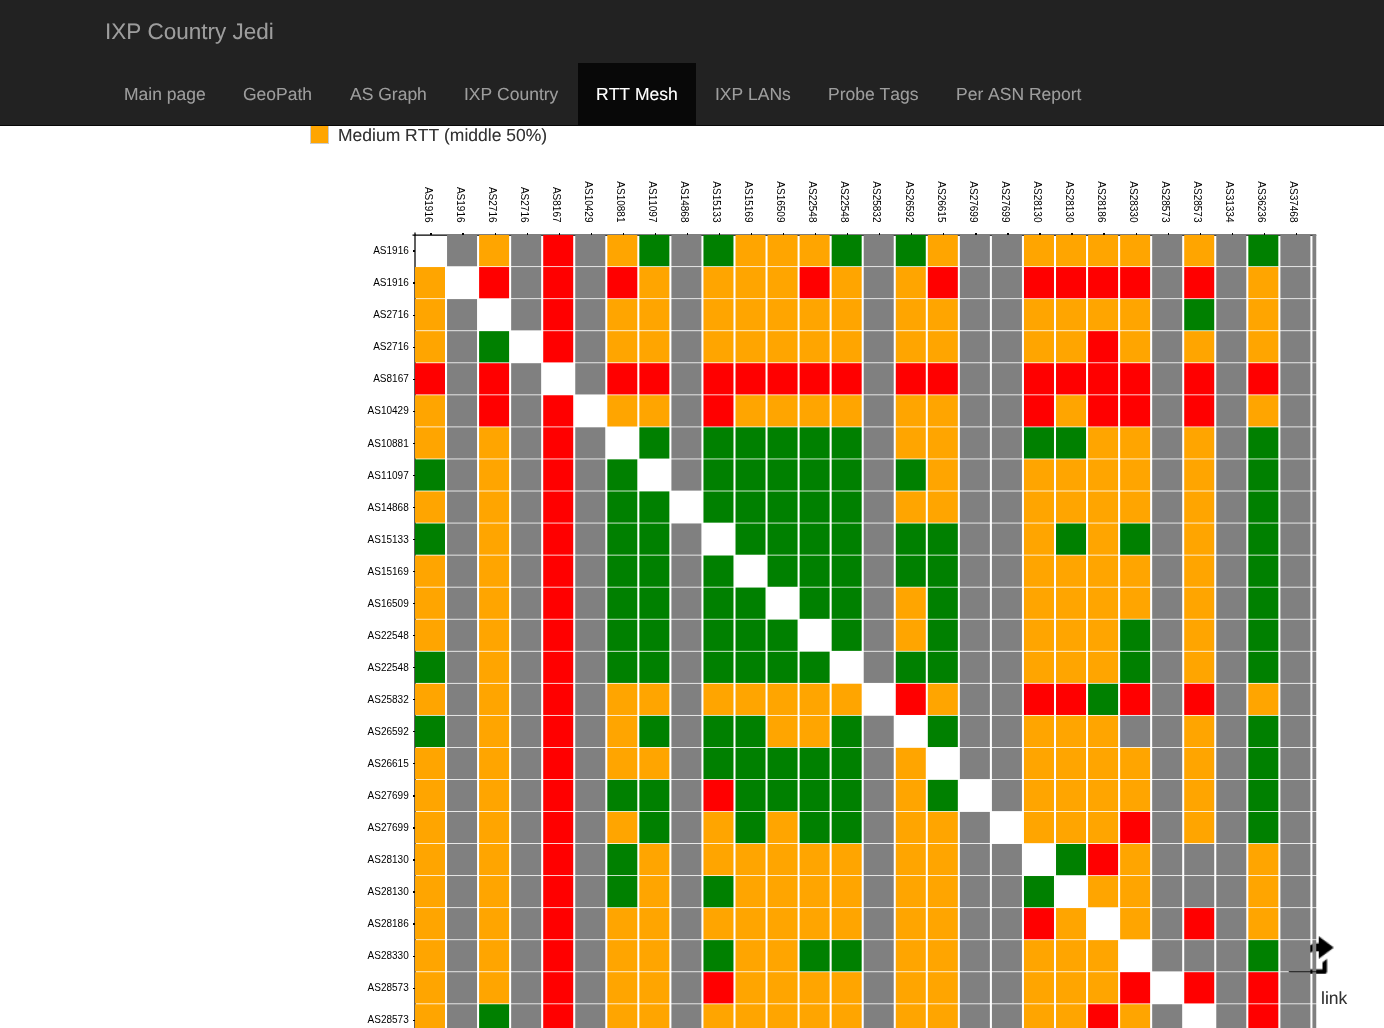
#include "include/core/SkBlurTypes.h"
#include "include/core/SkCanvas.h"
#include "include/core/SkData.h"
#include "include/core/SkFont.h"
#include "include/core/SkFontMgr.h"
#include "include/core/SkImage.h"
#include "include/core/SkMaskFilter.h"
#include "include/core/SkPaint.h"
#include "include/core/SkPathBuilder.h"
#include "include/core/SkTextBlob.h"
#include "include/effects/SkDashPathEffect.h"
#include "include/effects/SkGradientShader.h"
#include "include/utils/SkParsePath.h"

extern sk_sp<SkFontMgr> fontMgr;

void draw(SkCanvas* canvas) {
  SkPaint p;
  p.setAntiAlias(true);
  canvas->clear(SK_ColorWHITE);
  p.setColor(SkColorSetRGB(34, 34, 34));
  canvas->drawRect(SkRect::MakeLTRB(0, 0, 1384, 125), p);
  p.setColor(SkColorSetRGB(255, 165, 0));
  canvas->drawRect(SkRect::MakeLTRB(310.5f, 125.5f, 328.5f, 143.5f), p);
  p.setStyle(SkPaint::kStroke_Style);
  p.setStrokeWidth(1);
  p.setColor(SkColorSetRGB(204, 204, 204));
  canvas->drawRect(SkRect::MakeLTRB(310.5f, 125.5f, 328.5f, 143.5f), p);
  p.setStyle(SkPaint::kFill_Style);
  p.setColor(SkColorSetRGB(8, 8, 8));
  canvas->drawRect(SkRect::MakeLTRB(0, 125, 1384, 126), p);
  canvas->drawRect(SkRect::MakeLTRB(578, 63, 696, 125), p);
  canvas->drawImageRect(SkImages::DeferredFromEncodedData(SkData::MakeFromFileName("images/2.png")), SkRect::MakeLTRB(1288, 936, 1334, 974), SkSamplingOptions());
  canvas->drawImageRect(SkImages::DeferredFromEncodedData(SkData::MakeFromFileName("images/1.png")), SkRect::MakeLTRB(367, 181, 1317, 1028), SkSamplingOptions());
  SkFont font1(fontMgr->matchFamilyStyle("Liberation Sans", SkFontStyle::Normal()), 22.5f);
  font1.setSubpixel(true);
  p.setColor(SkColorSetRGB(157, 157, 157));
  canvas->drawString("IXP Country Jedi", 105, 39, font1, p);
  SkFont font2(fontMgr->matchFamilyStyle("Liberation Sans", SkFontStyle::Normal()), 17.5f);
  font2.setSubpixel(true);
  canvas->drawString("Main page", 124, 100, font2, p);
  canvas->drawString("GeoPath", 243, 100, font2, p);
  canvas->drawString("AS Graph", 350, 100, font2, p);
  canvas->drawString("IXP Country", 464, 100, font2, p);
  p.setColor(SK_ColorWHITE);
  canvas->drawString("RTT Mesh", 596, 100, font2, p);
  p.setColor(SkColorSetRGB(157, 157, 157));
  canvas->drawString("IXP LANs", 715, 100, font2, p);
  canvas->drawString("Probe Tags", 828, 100, font2, p);
  canvas->drawString("Per ASN Report", 956, 100, font2, p);
  p.setColor(SkColorSetRGB(51, 51, 51));
  canvas->drawString("Medium RTT (middle 50%)", 338, 141, font2, p);
  canvas->drawString("link", 1321, 1004, font2, p);
}
